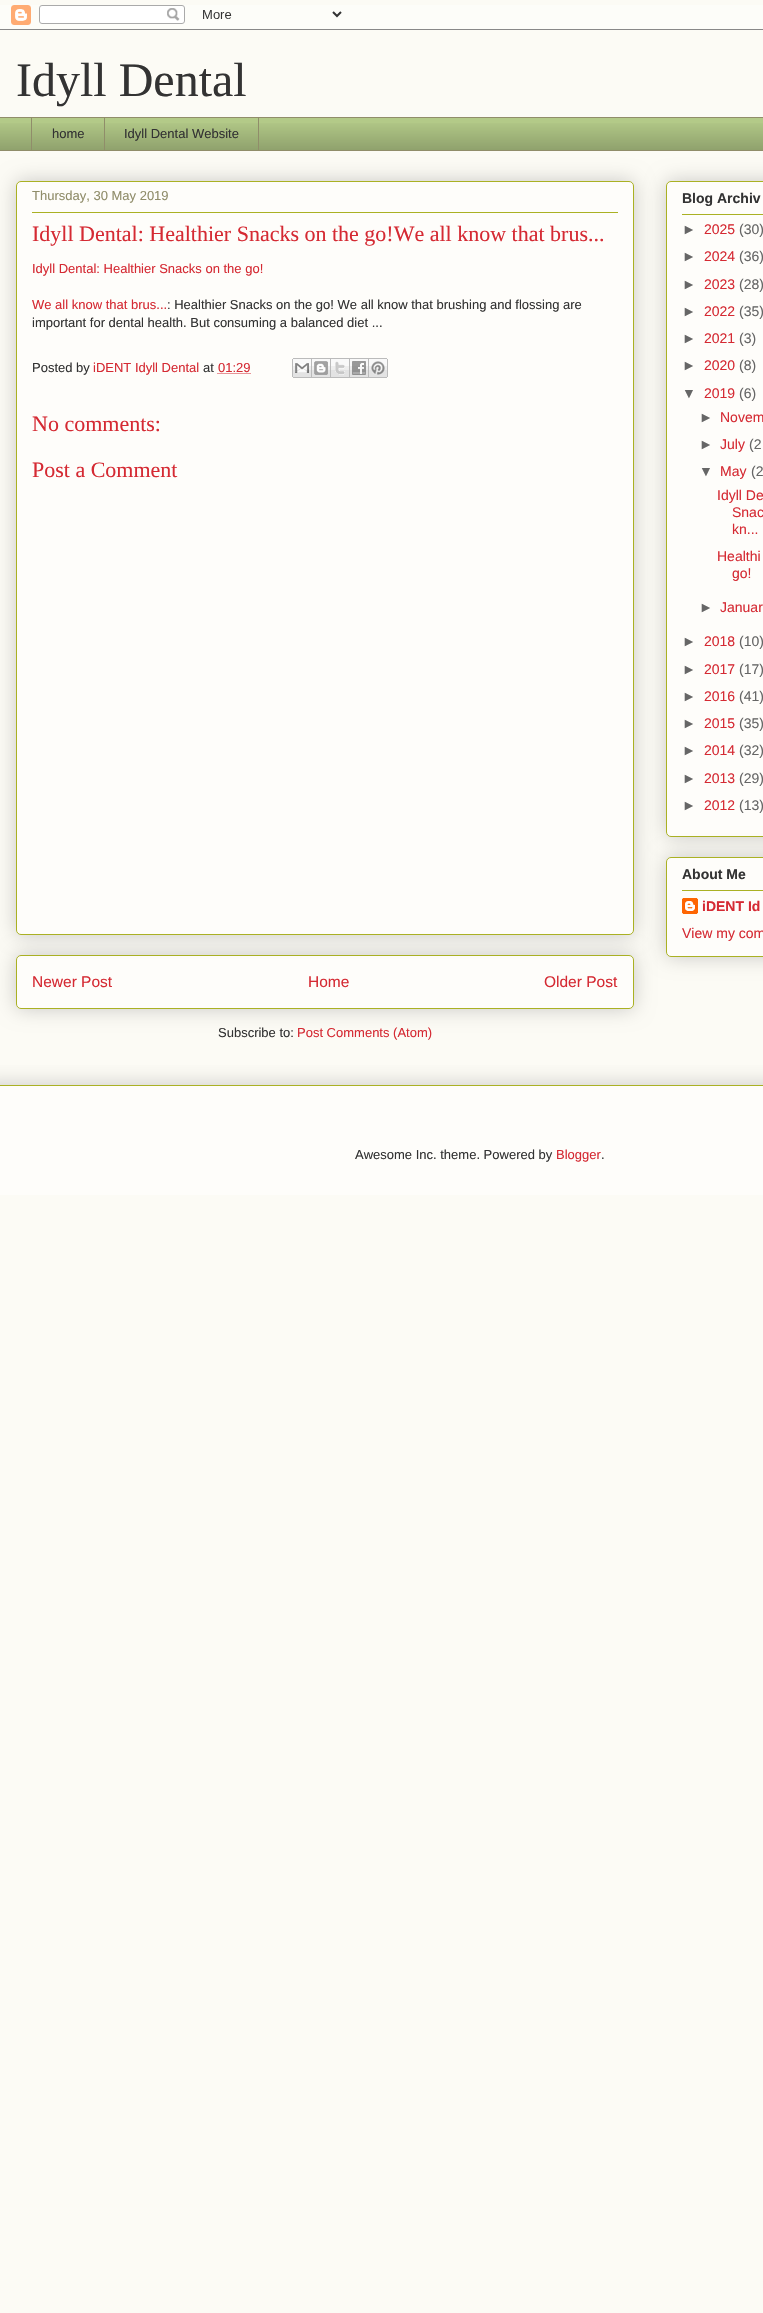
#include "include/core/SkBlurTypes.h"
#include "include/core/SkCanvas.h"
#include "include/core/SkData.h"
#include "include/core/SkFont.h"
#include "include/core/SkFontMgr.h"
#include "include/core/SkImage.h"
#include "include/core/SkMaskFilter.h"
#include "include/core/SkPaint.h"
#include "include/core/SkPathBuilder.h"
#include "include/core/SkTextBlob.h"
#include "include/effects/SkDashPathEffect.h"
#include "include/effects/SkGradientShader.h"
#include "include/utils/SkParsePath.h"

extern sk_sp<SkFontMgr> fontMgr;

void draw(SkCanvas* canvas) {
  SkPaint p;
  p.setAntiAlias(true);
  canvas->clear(SkColorSetRGB(252, 251, 245));
  canvas->drawImageRect(SkImages::DeferredFromEncodedData(SkData::MakeFromFileName("images/1.png")), SkRect::MakeLTRB(0, 5, 763, 30), SkSamplingOptions());
  p.setColor(SkColorSetRGB(179, 202, 136));
  canvas->drawRect(SkRect::MakeLTRB(0, 118, 763, 150), p);
  canvas->drawImageRect(SkImages::DeferredFromEncodedData(SkData::MakeFromFileName("images/2.png")), SkRect::MakeLTRB(0, 123, 763, 150), SkSamplingOptions());
  p.setColor(SkColorSetRGB(144, 141, 106));
  canvas->drawRect(SkRect::MakeLTRB(0, 117, 763, 118), p);
  canvas->drawRect(SkRect::MakeLTRB(31, 117, 32, 151), p);
  p.setStyle(SkPaint::kStroke_Style);
  p.setStrokeWidth(1);
  canvas->drawRect(SkRect::MakeLTRB(104.5f, 117.5f, 258.5f, 150.5f), p);
  p.setStyle(SkPaint::kFill_Style);
  canvas->drawRect(SkRect::MakeLTRB(0, 150, 763, 151), p);
  p.setColor(SkColorSetARGB(51, 0, 0, 0));
  p.setMaskFilter(SkMaskFilter::MakeBlur(kNormal_SkBlurStyle, 10));
  canvas->drawRoundRect(SkRect::MakeLTRB(16, 955, 634, 1009), 5, 5, p);
  p.setMaskFilter(nullptr);
  p.setColor(SkColorSetRGB(254, 253, 250));
  canvas->drawRoundRect(SkRect::MakeLTRB(16.5f, 955.5f, 633.5f, 1008.5f), 4.5f, 4.5f, p);
  p.setStyle(SkPaint::kStroke_Style);
  p.setColor(SkColorSetRGB(170, 177, 35));
  canvas->drawRoundRect(SkRect::MakeLTRB(16.5f, 955.5f, 633.5f, 1008.5f), 4.5f, 4.5f, p);
  p.setStyle(SkPaint::kFill_Style);
  p.setColor(SkColorSetARGB(51, 0, 0, 0));
  p.setMaskFilter(SkMaskFilter::MakeBlur(kNormal_SkBlurStyle, 10));
  canvas->drawRoundRect(SkRect::MakeLTRB(16, 181, 634, 935), 5, 5, p);
  p.setMaskFilter(nullptr);
  p.setColor(SkColorSetRGB(254, 253, 250));
  canvas->drawRoundRect(SkRect::MakeLTRB(16.5f, 181.5f, 633.5f, 934.5f), 4.5f, 4.5f, p);
  p.setStyle(SkPaint::kStroke_Style);
  p.setColor(SkColorSetRGB(170, 177, 35));
  canvas->drawRoundRect(SkRect::MakeLTRB(16.5f, 181.5f, 633.5f, 934.5f), 4.5f, 4.5f, p);
  p.setStyle(SkPaint::kFill_Style);
  canvas->drawRect(SkRect::MakeLTRB(32, 212, 618, 213), p);
  p.setStyle(SkPaint::kStroke_Style);
  p.setColor(SkColorSetRGB(213, 42, 51));
  p.setPathEffect(SkDashPathEffect::Make({{1, 1}}, 0));
  canvas->drawPath(SkPathBuilder().moveTo(217.5f, 373.5f).lineTo(250.5f, 373.5f).detach(), p);
  p.setPathEffect(nullptr);
  canvas->drawImageRect(SkImages::DeferredFromEncodedData(SkData::MakeFromFileName("images/3.png")), SkRect::MakeLTRB(292, 358, 312, 378), SkSamplingOptions());
  canvas->drawImageRect(SkImages::DeferredFromEncodedData(SkData::MakeFromFileName("images/4.png")), SkRect::MakeLTRB(312, 358, 331, 378), SkSamplingOptions());
  canvas->drawImageRect(SkImages::DeferredFromEncodedData(SkData::MakeFromFileName("images/5.png")), SkRect::MakeLTRB(331, 358, 350, 378), SkSamplingOptions());
  canvas->drawImageRect(SkImages::DeferredFromEncodedData(SkData::MakeFromFileName("images/6.png")), SkRect::MakeLTRB(350, 358, 369, 378), SkSamplingOptions());
  canvas->drawImageRect(SkImages::DeferredFromEncodedData(SkData::MakeFromFileName("images/7.png")), SkRect::MakeLTRB(369, 358, 388, 378), SkSamplingOptions());
  p.setStyle(SkPaint::kFill_Style);
  p.setColor(SkColorSetARGB(51, 0, 0, 0));
  p.setMaskFilter(SkMaskFilter::MakeBlur(kNormal_SkBlurStyle, 10));
  canvas->drawRoundRect(SkRect::MakeLTRB(666, 181, 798, 837), 5, 5, p);
  p.setMaskFilter(nullptr);
  p.setColor(SkColorSetRGB(254, 253, 250));
  canvas->drawRoundRect(SkRect::MakeLTRB(666.5f, 181.5f, 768.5f, 836.5f), 4.5f, 4.5f, p);
  p.setStyle(SkPaint::kStroke_Style);
  p.setColor(SkColorSetRGB(170, 177, 35));
  canvas->drawRoundRect(SkRect::MakeLTRB(666.5f, 181.5f, 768.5f, 836.5f), 4.5f, 4.5f, p);
  p.setStyle(SkPaint::kFill_Style);
  canvas->drawRect(SkRect::MakeLTRB(682, 214, 763, 215), p);
  p.setColor(SkColorSetARGB(51, 0, 0, 0));
  p.setMaskFilter(SkMaskFilter::MakeBlur(kNormal_SkBlurStyle, 10));
  canvas->drawRoundRect(SkRect::MakeLTRB(666, 857, 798, 957), 5, 5, p);
  p.setMaskFilter(nullptr);
  p.setColor(SkColorSetRGB(254, 253, 250));
  canvas->drawRoundRect(SkRect::MakeLTRB(666.5f, 857.5f, 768.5f, 956.5f), 4.5f, 4.5f, p);
  p.setStyle(SkPaint::kStroke_Style);
  p.setColor(SkColorSetRGB(170, 177, 35));
  canvas->drawRoundRect(SkRect::MakeLTRB(666.5f, 857.5f, 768.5f, 956.5f), 4.5f, 4.5f, p);
  p.setStyle(SkPaint::kFill_Style);
  canvas->drawRect(SkRect::MakeLTRB(682, 890, 763, 891), p);
  canvas->drawImageRect(SkImages::DeferredFromEncodedData(SkData::MakeFromFileName("images/8.png")), SkRect::MakeLTRB(682, 898, 698, 914), SkSamplingOptions());
  canvas->save();
  canvas->clipRect(SkRect::MakeLTRB(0, 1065, 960, 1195));
  p.setColor(SkColorSetARGB(51, 0, 0, 0));
  p.setMaskFilter(SkMaskFilter::MakeBlur(kNormal_SkBlurStyle, 10));
  canvas->drawRect(SkRect::MakeLTRB(-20, 1085, 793, 1195), p);
  p.setMaskFilter(nullptr);
  canvas->restore();
  p.setColor(SkColorSetRGB(254, 253, 250));
  canvas->drawRect(SkRect::MakeLTRB(0, 1086, 763, 1195), p);
  p.setColor(SkColorSetRGB(170, 177, 35));
  canvas->drawRect(SkRect::MakeLTRB(0, 1085, 763, 1086), p);
  SkFont font1(fontMgr->matchFamilyStyle("Liberation Serif", SkFontStyle::Normal()), 48);
  font1.setSubpixel(true);
  p.setColor(SkColorSetRGB(51, 51, 51));
  canvas->drawString("Idyll Dental", 16, 96, font1, p);
  SkFont font2(fontMgr->matchFamilyStyle("Liberation Sans", SkFontStyle::Normal()), 13);
  font2.setSubpixel(true);
  canvas->drawString("home", 52, 138, font2, p);
  canvas->drawString("Idyll Dental Website", 124, 138, font2, p);
  p.setColor(SkColorSetRGB(144, 141, 106));
  canvas->drawString("Thursday, 30 May 2019", 32, 200, font2, p);
  SkFont font3(fontMgr->matchFamilyStyle("Liberation Serif", SkFontStyle::Normal()), 22);
  font3.setSubpixel(true);
  p.setColor(SkColorSetRGB(213, 42, 51));
  canvas->drawString("Idyll Dental: Healthier Snacks on the go!We all know that brus...", 32, 241, font3, p);
  canvas->drawString("Idyll Dental: Healthier Snacks on the go!", 32, 273, font2, p);
  canvas->drawString("We all know that brus...", 32, 309, font2, p);
  p.setColor(SkColorSetRGB(51, 51, 51));
  canvas->drawString(": Healthier Snacks on the go! We all know that brushing and flossing are", 167, 309, font2, p);
  canvas->drawString("important for dental health. But consuming a balanced diet ...", 32, 327, font2, p);
  canvas->drawString("Posted by", 32, 372, font2, p);
  p.setColor(SkColorSetRGB(213, 42, 51));
  canvas->drawString("iDENT Idyll Dental", 93, 372, font2, p);
  p.setColor(SkColorSetRGB(51, 51, 51));
  canvas->drawString("at", 203, 372, font2, p);
  p.setColor(SkColorSetRGB(213, 42, 51));
  canvas->drawString("01:29", 218, 372, font2, p);
  canvas->drawString("No comments:", 32, 431, font3, p);
  canvas->drawString("Post a Comment", 32, 477, font3, p);
  SkFont font4(fontMgr->matchFamilyStyle("Liberation Sans", SkFontStyle::Normal()), 15.5f);
  font4.setSubpixel(true);
  canvas->drawString("Newer Post", 32, 987, font4, p);
  canvas->drawString("Home", 308, 987, font4, p);
  canvas->drawString("Older Post", 544, 987, font4, p);
  p.setColor(SkColorSetRGB(51, 51, 51));
  canvas->drawString("Subscribe to:", 218, 1037, font2, p);
  p.setColor(SkColorSetRGB(213, 42, 51));
  canvas->drawString("Post Comments (Atom)", 297, 1037, font2, p);
  SkFont font5(fontMgr->matchFamilyStyle("Liberation Sans", SkFontStyle::Bold()), 14);
  font5.setSubpixel(true);
  p.setColor(SkColorSetRGB(51, 51, 51));
  canvas->drawString("Blog Archiv", 682, 203, font5, p);
  SkFont font6(fontMgr->matchFamilyStyle("Liberation Sans", SkFontStyle::Normal()), 14);
  font6.setSubpixel(true);
  p.setColor(SkColorSetRGB(102, 102, 102));
  canvas->drawString("►", 682, 234, font6, p);
  p.setColor(SkColorSetRGB(213, 42, 51));
  canvas->drawString("2025", 704, 234, font6, p);
  p.setColor(SkColorSetRGB(102, 102, 102));
  canvas->drawString("(30)", 739, 234, font6, p);
  canvas->drawString("►", 682, 261, font6, p);
  p.setColor(SkColorSetRGB(213, 42, 51));
  canvas->drawString("2024", 704, 261, font6, p);
  p.setColor(SkColorSetRGB(102, 102, 102));
  canvas->drawString("(36)", 739, 261, font6, p);
  canvas->drawString("►", 682, 289, font6, p);
  p.setColor(SkColorSetRGB(213, 42, 51));
  canvas->drawString("2023", 704, 289, font6, p);
  p.setColor(SkColorSetRGB(102, 102, 102));
  canvas->drawString("(28)", 739, 289, font6, p);
  canvas->drawString("►", 682, 316, font6, p);
  p.setColor(SkColorSetRGB(213, 42, 51));
  canvas->drawString("2022", 704, 316, font6, p);
  p.setColor(SkColorSetRGB(102, 102, 102));
  canvas->drawString("(35)", 739, 316, font6, p);
  canvas->drawString("►", 682, 343, font6, p);
  p.setColor(SkColorSetRGB(213, 42, 51));
  canvas->drawString("2021", 704, 343, font6, p);
  p.setColor(SkColorSetRGB(102, 102, 102));
  canvas->drawString("(3)", 739, 343, font6, p);
  canvas->drawString("►", 682, 370, font6, p);
  p.setColor(SkColorSetRGB(213, 42, 51));
  canvas->drawString("2020", 704, 370, font6, p);
  p.setColor(SkColorSetRGB(102, 102, 102));
  canvas->drawString("(8)", 739, 370, font6, p);
  canvas->drawString("▼", 682, 398, font6, p);
  p.setColor(SkColorSetRGB(213, 42, 51));
  canvas->drawString("2019", 704, 398, font6, p);
  p.setColor(SkColorSetRGB(102, 102, 102));
  canvas->drawString("(6)", 739, 398, font6, p);
  canvas->drawString("►", 699, 422, font6, p);
  p.setColor(SkColorSetRGB(213, 42, 51));
  canvas->drawString("Novem", 720, 422, font6, p);
  p.setColor(SkColorSetRGB(102, 102, 102));
  canvas->drawString("►", 699, 449, font6, p);
  p.setColor(SkColorSetRGB(213, 42, 51));
  canvas->drawString("July", 720, 449, font6, p);
  p.setColor(SkColorSetRGB(102, 102, 102));
  canvas->drawString("(2", 749, 449, font6, p);
  canvas->drawString("▼", 699, 476, font6, p);
  p.setColor(SkColorSetRGB(213, 42, 51));
  canvas->drawString("May", 720, 476, font6, p);
  p.setColor(SkColorSetRGB(102, 102, 102));
  canvas->drawString("(2", 751, 476, font6, p);
  p.setColor(SkColorSetRGB(213, 42, 51));
  canvas->drawString("Idyll De", 717, 500, font6, p);
  canvas->drawString("Snac", 732, 517, font6, p);
  canvas->drawString("kn...", 732, 534, font6, p);
  canvas->drawString("Healthi", 717, 561, font6, p);
  canvas->drawString("go!", 732, 578, font6, p);
  p.setColor(SkColorSetRGB(102, 102, 102));
  canvas->drawString("►", 699, 612, font6, p);
  p.setColor(SkColorSetRGB(213, 42, 51));
  canvas->drawString("Januar", 720, 612, font6, p);
  p.setColor(SkColorSetRGB(102, 102, 102));
  canvas->drawString("►", 682, 646, font6, p);
  p.setColor(SkColorSetRGB(213, 42, 51));
  canvas->drawString("2018", 704, 646, font6, p);
  p.setColor(SkColorSetRGB(102, 102, 102));
  canvas->drawString("(10)", 739, 646, font6, p);
  canvas->drawString("►", 682, 674, font6, p);
  p.setColor(SkColorSetRGB(213, 42, 51));
  canvas->drawString("2017", 704, 674, font6, p);
  p.setColor(SkColorSetRGB(102, 102, 102));
  canvas->drawString("(17)", 739, 674, font6, p);
  canvas->drawString("►", 682, 701, font6, p);
  p.setColor(SkColorSetRGB(213, 42, 51));
  canvas->drawString("2016", 704, 701, font6, p);
  p.setColor(SkColorSetRGB(102, 102, 102));
  canvas->drawString("(41)", 739, 701, font6, p);
  canvas->drawString("►", 682, 728, font6, p);
  p.setColor(SkColorSetRGB(213, 42, 51));
  canvas->drawString("2015", 704, 728, font6, p);
  p.setColor(SkColorSetRGB(102, 102, 102));
  canvas->drawString("(35)", 739, 728, font6, p);
  canvas->drawString("►", 682, 755, font6, p);
  p.setColor(SkColorSetRGB(213, 42, 51));
  canvas->drawString("2014", 704, 755, font6, p);
  p.setColor(SkColorSetRGB(102, 102, 102));
  canvas->drawString("(32)", 739, 755, font6, p);
  canvas->drawString("►", 682, 783, font6, p);
  p.setColor(SkColorSetRGB(213, 42, 51));
  canvas->drawString("2013", 704, 783, font6, p);
  p.setColor(SkColorSetRGB(102, 102, 102));
  canvas->drawString("(29)", 739, 783, font6, p);
  canvas->drawString("►", 682, 810, font6, p);
  p.setColor(SkColorSetRGB(213, 42, 51));
  canvas->drawString("2012", 704, 810, font6, p);
  p.setColor(SkColorSetRGB(102, 102, 102));
  canvas->drawString("(13)", 739, 810, font6, p);
  p.setColor(SkColorSetRGB(51, 51, 51));
  canvas->drawString("About Me", 682, 879, font5, p);
  p.setColor(SkColorSetRGB(213, 42, 51));
  canvas->drawString("iDENT Id", 702, 911, font5, p);
  canvas->drawString("View my com", 682, 938, font6, p);
  p.setColor(SkColorSetRGB(51, 51, 51));
  canvas->drawString("Awesome Inc. theme. Powered by", 355, 1159, font2, p);
  p.setColor(SkColorSetRGB(213, 42, 51));
  canvas->drawString("Blogger", 556, 1159, font2, p);
  p.setColor(SkColorSetRGB(51, 51, 51));
  canvas->drawString(".", 601, 1159, font2, p);
}
